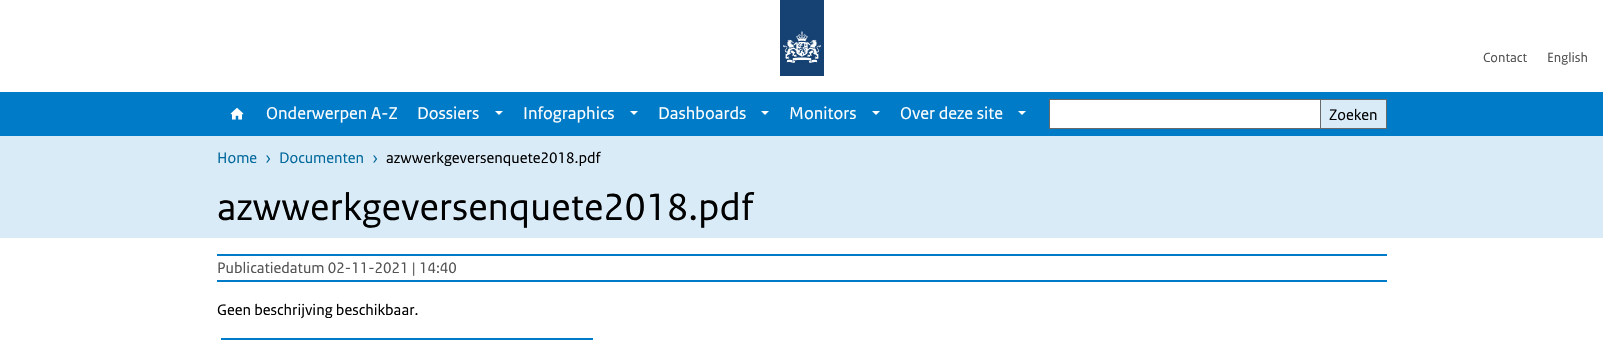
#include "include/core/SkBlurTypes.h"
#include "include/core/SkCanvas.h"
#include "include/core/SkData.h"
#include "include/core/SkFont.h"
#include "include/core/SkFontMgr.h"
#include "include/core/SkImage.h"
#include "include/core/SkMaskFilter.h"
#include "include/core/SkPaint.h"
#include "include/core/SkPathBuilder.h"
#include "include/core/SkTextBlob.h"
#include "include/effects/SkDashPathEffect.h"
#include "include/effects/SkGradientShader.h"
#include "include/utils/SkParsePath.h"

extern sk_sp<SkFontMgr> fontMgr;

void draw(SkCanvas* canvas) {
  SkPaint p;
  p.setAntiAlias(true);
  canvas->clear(SK_ColorWHITE);
  canvas->drawImageRect(SkImages::DeferredFromEncodedData(SkData::MakeFromFileName("images/1.png")), SkRect::MakeLTRB(780, 0, 824, 76), SkSamplingOptions());
  p.setColor(SkColorSetRGB(0, 123, 199));
  canvas->drawRect(SkRect::MakeLTRB(0, 92, 1603, 136), p);
  canvas->drawImageRect(SkImages::DeferredFromEncodedData(SkData::MakeFromFileName("images/2.png")), SkRect::MakeLTRB(230, 107, 244, 120), SkSamplingOptions());
  p.setColor(SK_ColorWHITE);
  canvas->drawPath(SkPathBuilder().moveTo(495, 111).lineTo(503, 111).lineTo(499, 115).close().detach(), p);
  canvas->drawPath(SkPathBuilder().moveTo(630, 111).lineTo(638, 111).lineTo(634, 115).close().detach(), p);
  canvas->drawPath(SkPathBuilder().moveTo(761, 111).lineTo(769, 111).lineTo(765, 115).close().detach(), p);
  canvas->drawPath(SkPathBuilder().moveTo(872, 111).lineTo(880, 111).lineTo(876, 115).close().detach(), p);
  canvas->drawPath(SkPathBuilder().moveTo(1018, 111).lineTo(1026, 111).lineTo(1022, 115).close().detach(), p);
  canvas->drawRect(SkRect::MakeLTRB(1049.5f, 99.5f, 1320.5f, 128.5f), p);
  p.setStyle(SkPaint::kStroke_Style);
  p.setStrokeWidth(1);
  p.setColor(SkColorSetRGB(105, 105, 105));
  canvas->drawRect(SkRect::MakeLTRB(1049.5f, 99.5f, 1320.5f, 128.5f), p);
  p.setStyle(SkPaint::kFill_Style);
  p.setColor(SkColorSetRGB(217, 235, 247));
  canvas->drawRect(SkRect::MakeLTRB(1321, 100, 1386, 128), p);
  p.setColor(SkColorSetRGB(105, 105, 105));
  canvas->drawRect(SkRect::MakeLTRB(1321, 99, 1387, 100), p);
  canvas->drawRect(SkRect::MakeLTRB(1386, 99, 1387, 129), p);
  canvas->drawRect(SkRect::MakeLTRB(1321, 128, 1387, 129), p);
  p.setColor(SkColorSetRGB(217, 235, 247));
  canvas->drawRect(SkRect::MakeLTRB(0, 136, 1603, 238), p);
  p.setColor(SkColorSetRGB(0, 123, 199));
  canvas->drawRect(SkRect::MakeLTRB(217, 254, 1387, 256), p);
  canvas->drawRect(SkRect::MakeLTRB(217, 280, 1387, 282), p);
  canvas->drawRect(SkRect::MakeLTRB(221, 338, 593, 340), p);
  SkFont font1(fontMgr->matchFamilyStyle("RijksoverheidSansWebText", SkFontStyle::Normal()), 14);
  font1.setSubpixel(true);
  p.setColor(SkColorSetRGB(83, 83, 83));
  canvas->drawString("Contact", 1483, 62, font1, p);
  canvas->drawString("English", 1547, 62, font1, p);
  SkFont font2(fontMgr->matchFamilyStyle("RijksoverheidSansWebText", SkFontStyle::Normal()), 18);
  font2.setSubpixel(true);
  p.setColor(SK_ColorWHITE);
  canvas->drawString("Onderwerpen A-Z", 266, 119, font2, p);
  canvas->drawString("Dossiers", 417, 119, font2, p);
  canvas->drawString("Infographics", 523, 119, font2, p);
  canvas->drawString("Dashboards", 658, 119, font2, p);
  canvas->drawString("Monitors", 789, 119, font2, p);
  canvas->drawString("Over deze site", 900, 119, font2, p);
  SkFont font3(fontMgr->matchFamilyStyle("RijksoverheidSansWebText", SkFontStyle::Normal()), 16);
  font3.setSubpixel(true);
  p.setColor(SK_ColorBLACK);
  canvas->drawString("Zoeken", 1329, 120, font3, p);
  p.setColor(SkColorSetRGB(1, 104, 155));
  canvas->drawString("Home", 217, 163, font3, p);
  canvas->drawString("›", 265, 163, font3, p);
  canvas->drawString("Documenten", 279, 163, font3, p);
  canvas->drawString("›", 372, 163, font3, p);
  p.setColor(SK_ColorBLACK);
  canvas->drawString("azwwerkgeversenquete2018.pdf", 386, 163, font3, p);
  SkFont font4(fontMgr->matchFamilyStyle("RijksoverheidSansWebText", SkFontStyle::Normal()), 40);
  font4.setSubpixel(true);
  canvas->drawString("azwwerkgeversenquete2018.pdf", 217, 220, font4, p);
  p.setColor(SkColorSetRGB(83, 83, 83));
  canvas->drawString("Publicatiedatum 02-11-2021 | 14:40", 217, 273, font3, p);
  p.setColor(SK_ColorBLACK);
  canvas->drawString("Geen beschrijving beschikbaar.", 217, 315, font3, p);
}
